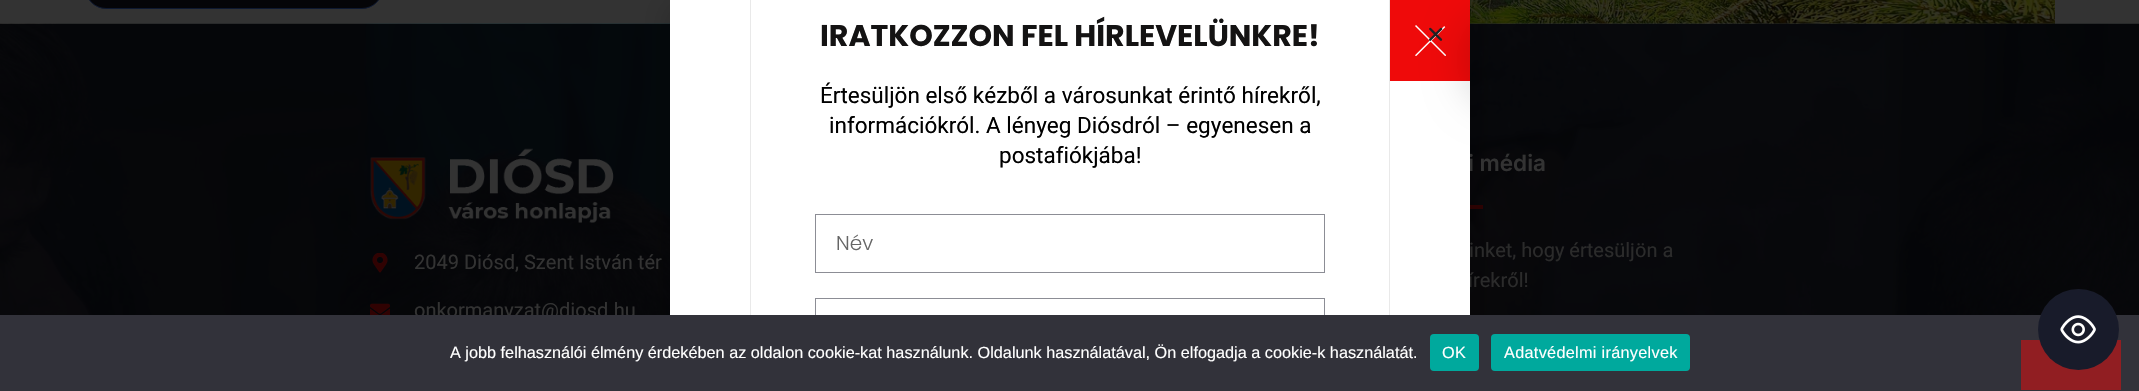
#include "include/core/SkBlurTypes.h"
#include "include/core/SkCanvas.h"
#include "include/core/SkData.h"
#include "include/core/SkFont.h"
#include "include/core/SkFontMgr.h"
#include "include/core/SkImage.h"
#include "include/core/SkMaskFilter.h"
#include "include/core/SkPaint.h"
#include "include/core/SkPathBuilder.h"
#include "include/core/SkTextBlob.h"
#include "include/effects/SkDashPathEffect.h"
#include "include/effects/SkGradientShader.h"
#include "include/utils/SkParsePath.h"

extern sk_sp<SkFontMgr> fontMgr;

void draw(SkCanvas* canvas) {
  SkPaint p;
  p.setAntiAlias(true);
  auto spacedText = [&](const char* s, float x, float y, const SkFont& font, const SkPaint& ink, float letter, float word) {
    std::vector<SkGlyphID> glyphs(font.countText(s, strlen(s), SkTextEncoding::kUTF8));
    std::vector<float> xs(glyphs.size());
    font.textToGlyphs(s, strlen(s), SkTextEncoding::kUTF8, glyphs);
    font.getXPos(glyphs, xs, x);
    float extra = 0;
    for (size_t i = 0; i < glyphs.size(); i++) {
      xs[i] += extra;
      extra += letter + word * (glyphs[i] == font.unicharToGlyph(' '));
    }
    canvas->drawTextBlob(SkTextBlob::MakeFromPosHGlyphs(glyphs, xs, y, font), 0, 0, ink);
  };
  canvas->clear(SkColorSetRGB(51, 51, 51));
  p.setColor(SkColorSetRGB(5, 5, 8));
  canvas->drawRoundRect(SkRect::MakeLTRB(85.5f, -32.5f, 382.5f, 8.5f), 31, 31, p);
  p.setStyle(SkPaint::kStroke_Style);
  p.setStrokeWidth(1);
  p.setColor(SkColorSetRGB(14, 25, 49));
  canvas->drawRoundRect(SkRect::MakeLTRB(85.5f, -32.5f, 382.5f, 8.5f), 31, 31, p);
  canvas->drawImageRect(SkImages::DeferredFromEncodedData(SkData::MakeFromFileName("images/1.png")), SkRect::MakeLTRB(1470, 0, 2055, 24), SkSamplingOptions());
  canvas->drawImageRect(SkImages::DeferredFromEncodedData(SkData::MakeFromFileName("images/4.png")), SkRect::MakeLTRB(0, 23, 2139, 315), SkSamplingOptions());
  p.setStyle(SkPaint::kFill_Style);
  p.setColor(SkColorSetRGB(48, 2, 2));
  canvas->drawRect(SkRect::MakeLTRB(1470, 205, 1483, 209), p);
  p.setColor(SkColorSetARGB(51, 0, 0, 0));
  p.setMaskFilter(SkMaskFilter::MakeBlur(kNormal_SkBlurStyle, 14.5f));
  canvas->drawRect(SkRect::MakeLTRB(669, 6, 1476, 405), p);
  p.setMaskFilter(nullptr);
  canvas->drawImageRect(SkImages::DeferredFromEncodedData(SkData::MakeFromFileName("images/5.png")), SkRect::MakeLTRB(370, 148, 614, 223), SkSamplingOptions());
  canvas->drawImageRect(SkImages::DeferredFromEncodedData(SkData::MakeFromFileName("images/6.png")), SkRect::MakeLTRB(372, 253, 388, 273), SkSamplingOptions());
  canvas->drawImageRect(SkImages::DeferredFromEncodedData(SkData::MakeFromFileName("images/7.png")), SkRect::MakeLTRB(370, 303, 390, 315), SkSamplingOptions());
  SkFont font1(fontMgr->matchFamilyStyle("Heebo", SkFontStyle::Normal()), 20);
  font1.setSubpixel(true);
  p.setColor(SkColorSetRGB(51, 51, 51));
  canvas->drawString("2049 Diósd, Szent István tér", 414, 269, font1, p);
  canvas->drawString("onkormanyzat@diosd.hu", 414, 317, font1, p);
  SkFont font2(fontMgr->matchFamilyStyle("Inter", SkFontStyle(600, SkFontStyle::kNormal_Width, SkFontStyle::kUpright_Slant)), 22.5f);
  font2.setSubpixel(true);
  canvas->drawString("i média", 1468, 171, font2, p);
  p.setColor(SkColorSetRGB(43, 43, 43));
  canvas->drawString("inket, hogy értesüljön a", 1469, 257, font1, p);
  canvas->drawString("írekről!", 1468, 287, font1, p);
  p.setColor(SK_ColorWHITE);
  canvas->drawRect(SkRect::MakeLTRB(670, 0, 1470, 315), p);
  p.setColor(SkColorSetRGB(239, 10, 10));
  canvas->drawRect(SkRect::MakeLTRB(1390, 0, 1470, 81), p);
  canvas->drawImageRect(SkImages::DeferredFromEncodedData(SkData::MakeFromFileName("images/2.png")), SkRect::MakeLTRB(1415, 25, 1446, 56), SkSamplingOptions());
  canvas->save();
  canvas->clipRect(SkRect::MakeLTRB(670, 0, 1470, 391));
  p.setColor(SkColorSetARGB(38, 0, 0, 0));
  p.setMaskFilter(SkMaskFilter::MakeBlur(kNormal_SkBlurStyle, 19));
  canvas->drawRoundRect(SkRect::MakeLTRB(1464, 13, 1558, 106), 38, 38, p);
  p.setMaskFilter(nullptr);
  canvas->restore();
  canvas->drawImageRect(SkImages::DeferredFromEncodedData(SkData::MakeFromFileName("images/3.png")), SkRect::MakeLTRB(1429, 27, 1443, 41), SkSamplingOptions());
  p.setStyle(SkPaint::kStroke_Style);
  p.setColor(SkColorSetRGB(140, 141, 149));
  canvas->drawRect(SkRect::MakeLTRB(815.5f, 298.5f, 1324.5f, 355.5f), p);
  canvas->drawRect(SkRect::MakeLTRB(815.5f, 214.5f, 1324.5f, 272.5f), p);
  SkFont font3(fontMgr->matchFamilyStyle("Poppins", SkFontStyle(300, SkFontStyle::kNormal_Width, SkFontStyle::kUpright_Slant)), 20);
  font3.setSubpixel(true);
  p.setStyle(SkPaint::kFill_Style);
  p.setColor(SkColorSetRGB(102, 102, 102));
  canvas->drawString("Név", 836, 250, font3, p);
  SkFont font4(fontMgr->matchFamilyStyle("Roboto", SkFontStyle::Normal()), 22.5f);
  font4.setSubpixel(true);
  p.setColor(SK_ColorBLACK);
  canvas->drawString("postafiókjába!", 999, 163, font4, p);
  canvas->drawString("információkról. A lényeg Diósdról – egyenesen a", 829, 133, font4, p);
  canvas->drawString("Értesüljön első kézből a városunkat érintő hírekről,", 820, 103, font4, p);
  SkFont font5(fontMgr->matchFamilyStyle("Poppins", SkFontStyle::Bold()), 30);
  font5.setSubpixel(true);
  p.setColor(SkColorSetRGB(20, 19, 19));
  canvas->drawString("IRATKOZZON FEL HÍRLEVELÜNKRE!", 820, 46, font5, p);
  p.setColor(SkColorSetRGB(233, 233, 233));
  canvas->drawRect(SkRect::MakeLTRB(750, 0, 751, 315), p);
  canvas->drawRect(SkRect::MakeLTRB(1389, 0, 1390, 315), p);
  p.setColor(SkColorSetRGB(50, 50, 58));
  canvas->drawRect(SkRect::MakeLTRB(0, 315, 2139, 391), p);
  SkFont font6(fontMgr->matchFamilyStyle("Liberation Sans", SkFontStyle::Normal()), 16.25f);
  font6.setSubpixel(true);
  p.setColor(SK_ColorWHITE);
  canvas->drawString("A jobb felhasználói élmény érdekében az oldalon cookie-kat használunk. Oldalunk használatával, Ön elfogadja a cookie-k használatát.", 450, 358, font6, p);
  p.setColor(SkColorSetRGB(0, 169, 157));
  canvas->drawRoundRect(SkRect::MakeLTRB(1430, 334, 1479, 371), 4, 4, p);
  p.setColor(SK_ColorWHITE);
  spacedText("OK", 1442, 358, font6, p, 0.3f, 0);
  p.setColor(SkColorSetRGB(0, 169, 157));
  canvas->drawRoundRect(SkRect::MakeLTRB(1491, 334, 1690, 371), 4, 4, p);
  p.setColor(SK_ColorWHITE);
  spacedText("Adatvédelmi irányelvek", 1504, 358, font6, p, 0.3f, 0);
  p.setColor(SkColorSetRGB(145, 30, 34));
  canvas->drawRect(SkRect::MakeLTRB(2021, 340, 2121, 390), p);
  p.setColor(SkColorSetRGB(24, 27, 42));
  canvas->drawCircle(2078.5f, 329.5f, 40.5f, p);
  canvas->drawImageRect(SkImages::DeferredFromEncodedData(SkData::MakeFromFileName("images/8.png")), SkRect::MakeLTRB(2060, 315, 2096, 344), SkSamplingOptions());
}
